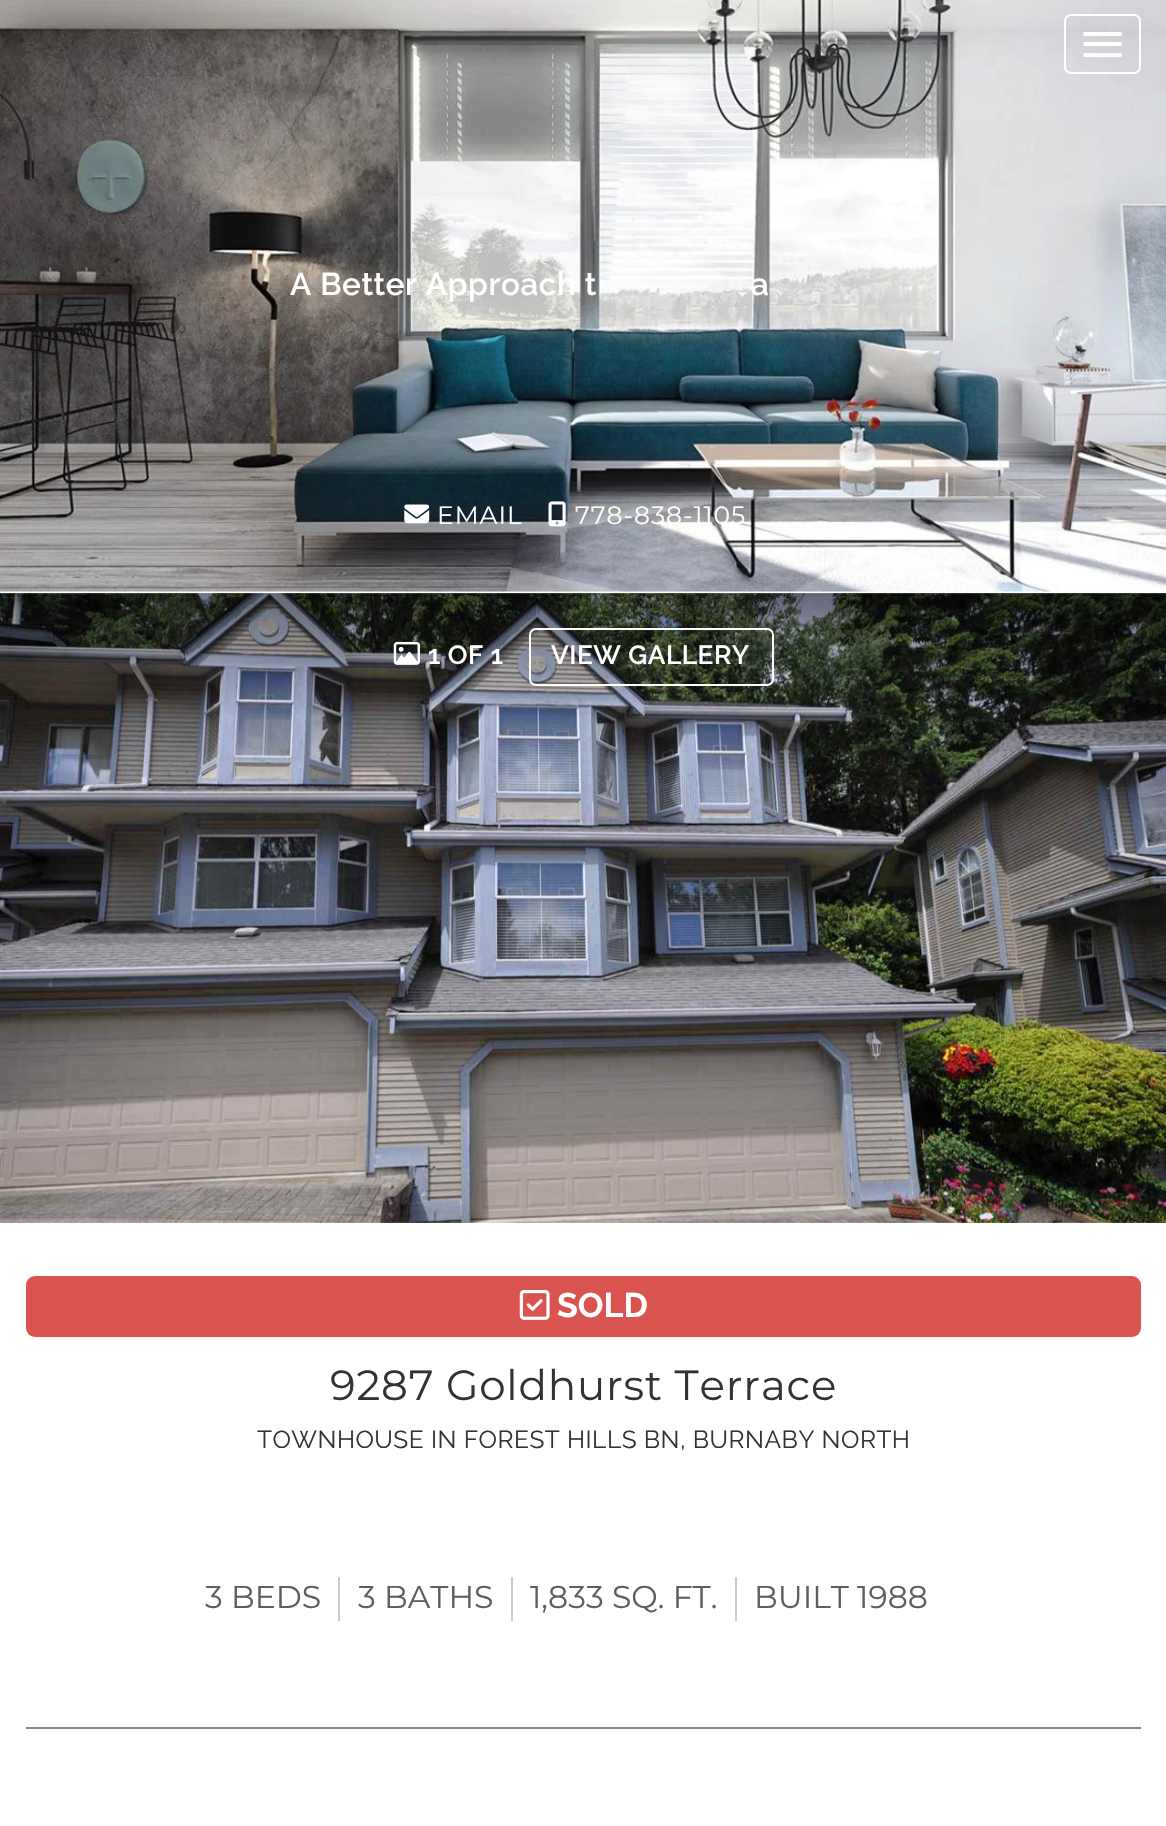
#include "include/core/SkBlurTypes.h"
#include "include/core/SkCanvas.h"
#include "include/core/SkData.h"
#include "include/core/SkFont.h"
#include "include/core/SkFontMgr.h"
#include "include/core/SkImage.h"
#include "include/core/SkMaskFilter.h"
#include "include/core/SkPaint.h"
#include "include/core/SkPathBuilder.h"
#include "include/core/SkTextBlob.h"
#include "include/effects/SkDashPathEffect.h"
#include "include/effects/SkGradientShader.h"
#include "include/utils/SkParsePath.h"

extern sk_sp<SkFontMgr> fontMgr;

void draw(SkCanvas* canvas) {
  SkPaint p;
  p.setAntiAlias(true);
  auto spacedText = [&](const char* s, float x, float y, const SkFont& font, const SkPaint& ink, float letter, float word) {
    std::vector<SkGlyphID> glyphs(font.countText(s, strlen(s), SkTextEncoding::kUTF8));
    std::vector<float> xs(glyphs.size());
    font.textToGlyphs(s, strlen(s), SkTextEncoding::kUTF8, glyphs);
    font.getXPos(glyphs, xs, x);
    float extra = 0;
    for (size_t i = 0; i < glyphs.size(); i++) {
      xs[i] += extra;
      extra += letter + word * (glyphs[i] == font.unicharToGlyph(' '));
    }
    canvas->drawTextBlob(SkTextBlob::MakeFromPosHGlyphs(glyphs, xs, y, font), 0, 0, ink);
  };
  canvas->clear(SK_ColorWHITE);
  canvas->drawImageRect(SkImages::DeferredFromEncodedData(SkData::MakeFromFileName("images/1.png")), SkRect::MakeLTRB(0, 0, 1166, 592), SkSamplingOptions());
  p.setStyle(SkPaint::kStroke_Style);
  p.setStrokeWidth(2);
  p.setColor(SK_ColorWHITE);
  canvas->drawRoundRect(SkRect::MakeLTRB(1065, 15, 1140, 73), 6, 6, p);
  p.setStyle(SkPaint::kFill_Style);
  canvas->drawRoundRect(SkRect::MakeLTRB(1083, 32, 1122, 36), 2, 2, p);
  canvas->drawRoundRect(SkRect::MakeLTRB(1083, 42, 1122, 46), 2, 2, p);
  canvas->drawRoundRect(SkRect::MakeLTRB(1083, 53, 1122, 57), 2, 2, p);
  canvas->drawImageRect(SkImages::DeferredFromEncodedData(SkData::MakeFromFileName("images/2.png")), SkRect::MakeLTRB(404, 504, 430, 524), SkSamplingOptions());
  canvas->drawImageRect(SkImages::DeferredFromEncodedData(SkData::MakeFromFileName("images/3.png")), SkRect::MakeLTRB(548, 501, 566, 527), SkSamplingOptions());
  canvas->drawImageRect(SkImages::DeferredFromEncodedData(SkData::MakeFromFileName("images/4.png")), SkRect::MakeLTRB(0, 593, 1166, 1223), SkSamplingOptions());
  {
    const SkColor colors[] = {SkColorSetARGB(115, 0, 0, 0), SkColorSetARGB(0, 0, 0, 0)};
    const float stops[] = {0, 1};
    const SkPoint ends[] = {{584, 593}, {584, 721}};
    p.setShader(SkGradientShader::MakeLinear(ends, colors, stops, 2, SkTileMode::kClamp));
    p.setAlpha(255);
  }
  canvas->drawRect(SkRect::MakeLTRB(0, 593, 1166, 715), p);
  canvas->drawImageRect(SkImages::DeferredFromEncodedData(SkData::MakeFromFileName("images/5.png")), SkRect::MakeLTRB(393, 641, 420, 665), SkSamplingOptions());
  p.setStyle(SkPaint::kStroke_Style);
  p.setShader(nullptr);
  p.setColor(SK_ColorWHITE);
  canvas->drawRoundRect(SkRect::MakeLTRB(530, 629, 773, 685), 6, 6, p);
  p.setStyle(SkPaint::kFill_Style);
  p.setColor(SkColorSetRGB(217, 83, 79));
  canvas->drawRoundRect(SkRect::MakeLTRB(26, 1276, 1141, 1337), 9, 9, p);
  canvas->drawImageRect(SkImages::DeferredFromEncodedData(SkData::MakeFromFileName("images/6.png")), SkRect::MakeLTRB(519, 1290, 550, 1320), SkSamplingOptions());
  p.setColor(SkColorSetRGB(136, 136, 136));
  canvas->drawRect(SkRect::MakeLTRB(26, 1727, 1141, 1729), p);
  p.setColor(SkColorSetRGB(204, 204, 204));
  canvas->drawRect(SkRect::MakeLTRB(338, 1577, 340, 1621), p);
  canvas->drawRect(SkRect::MakeLTRB(511, 1577, 513, 1621), p);
  canvas->drawRect(SkRect::MakeLTRB(735, 1577, 737, 1621), p);
  SkFont font1(fontMgr->matchFamilyStyle("Raleway", SkFontStyle(600, SkFontStyle::kNormal_Width, SkFontStyle::kUpright_Slant)), 31.5f);
  font1.setSubpixel(true);
  p.setColor(SK_ColorWHITE);
  spacedText("A Better Approach t", 290, 295, font1, p, 0.6f, 0);
  spacedText("a", 751, 295, font1, p, 0.6f, 0);
  SkFont font2(fontMgr->matchFamilyStyle("Montserrat", SkFontStyle::Normal()), 25);
  font2.setSubpixel(true);
  spacedText("EMAIL", 437, 524, font2, p, 1, 0);
  spacedText("778-838-1105", 575, 524, font2, p, 1, 0);
  SkFont font3(fontMgr->matchFamilyStyle("Raleway", SkFontStyle(600, SkFontStyle::kNormal_Width, SkFontStyle::kUpright_Slant)), 26.25f);
  font3.setSubpixel(true);
  spacedText("1 OF 1", 428, 664, font3, p, 0.5f, 0);
  spacedText("VIEW GALLERY", 551, 664, font3, p, 0.5f, 0);
  SkFont font4(fontMgr->matchFamilyStyle("Raleway", SkFontStyle::Bold()), 34);
  font4.setSubpixel(true);
  canvas->drawString("SOLD", 557, 1317, font4, p);
  SkFont font5(fontMgr->matchFamilyStyle("Montserrat", SkFontStyle::Normal()), 42);
  font5.setSubpixel(true);
  p.setColor(SkColorSetRGB(51, 51, 51));
  spacedText("9287 Goldhurst Terrace", 330, 1400, font5, p, 0.8f, 0);
  SkFont font6(fontMgr->matchFamilyStyle("Raleway", SkFontStyle::Normal()), 24.5f);
  font6.setSubpixel(true);
  spacedText("TOWNHOUSE IN FOREST HILLS BN, BURNABY NORTH", 257, 1448, font6, p, 0.5f, 0);
  SkFont font7(fontMgr->matchFamilyStyle("Montserrat", SkFontStyle::Normal()), 31.5f);
  font7.setSubpixel(true);
  p.setColor(SkColorSetRGB(94, 94, 94));
  canvas->drawString("3 BEDS", 205, 1608, font7, p);
  canvas->drawString("3 BATHS", 358, 1608, font7, p);
  canvas->drawString("1,833 SQ. FT.", 530, 1608, font7, p);
  canvas->drawString("BUILT 1988", 754, 1608, font7, p);
}
